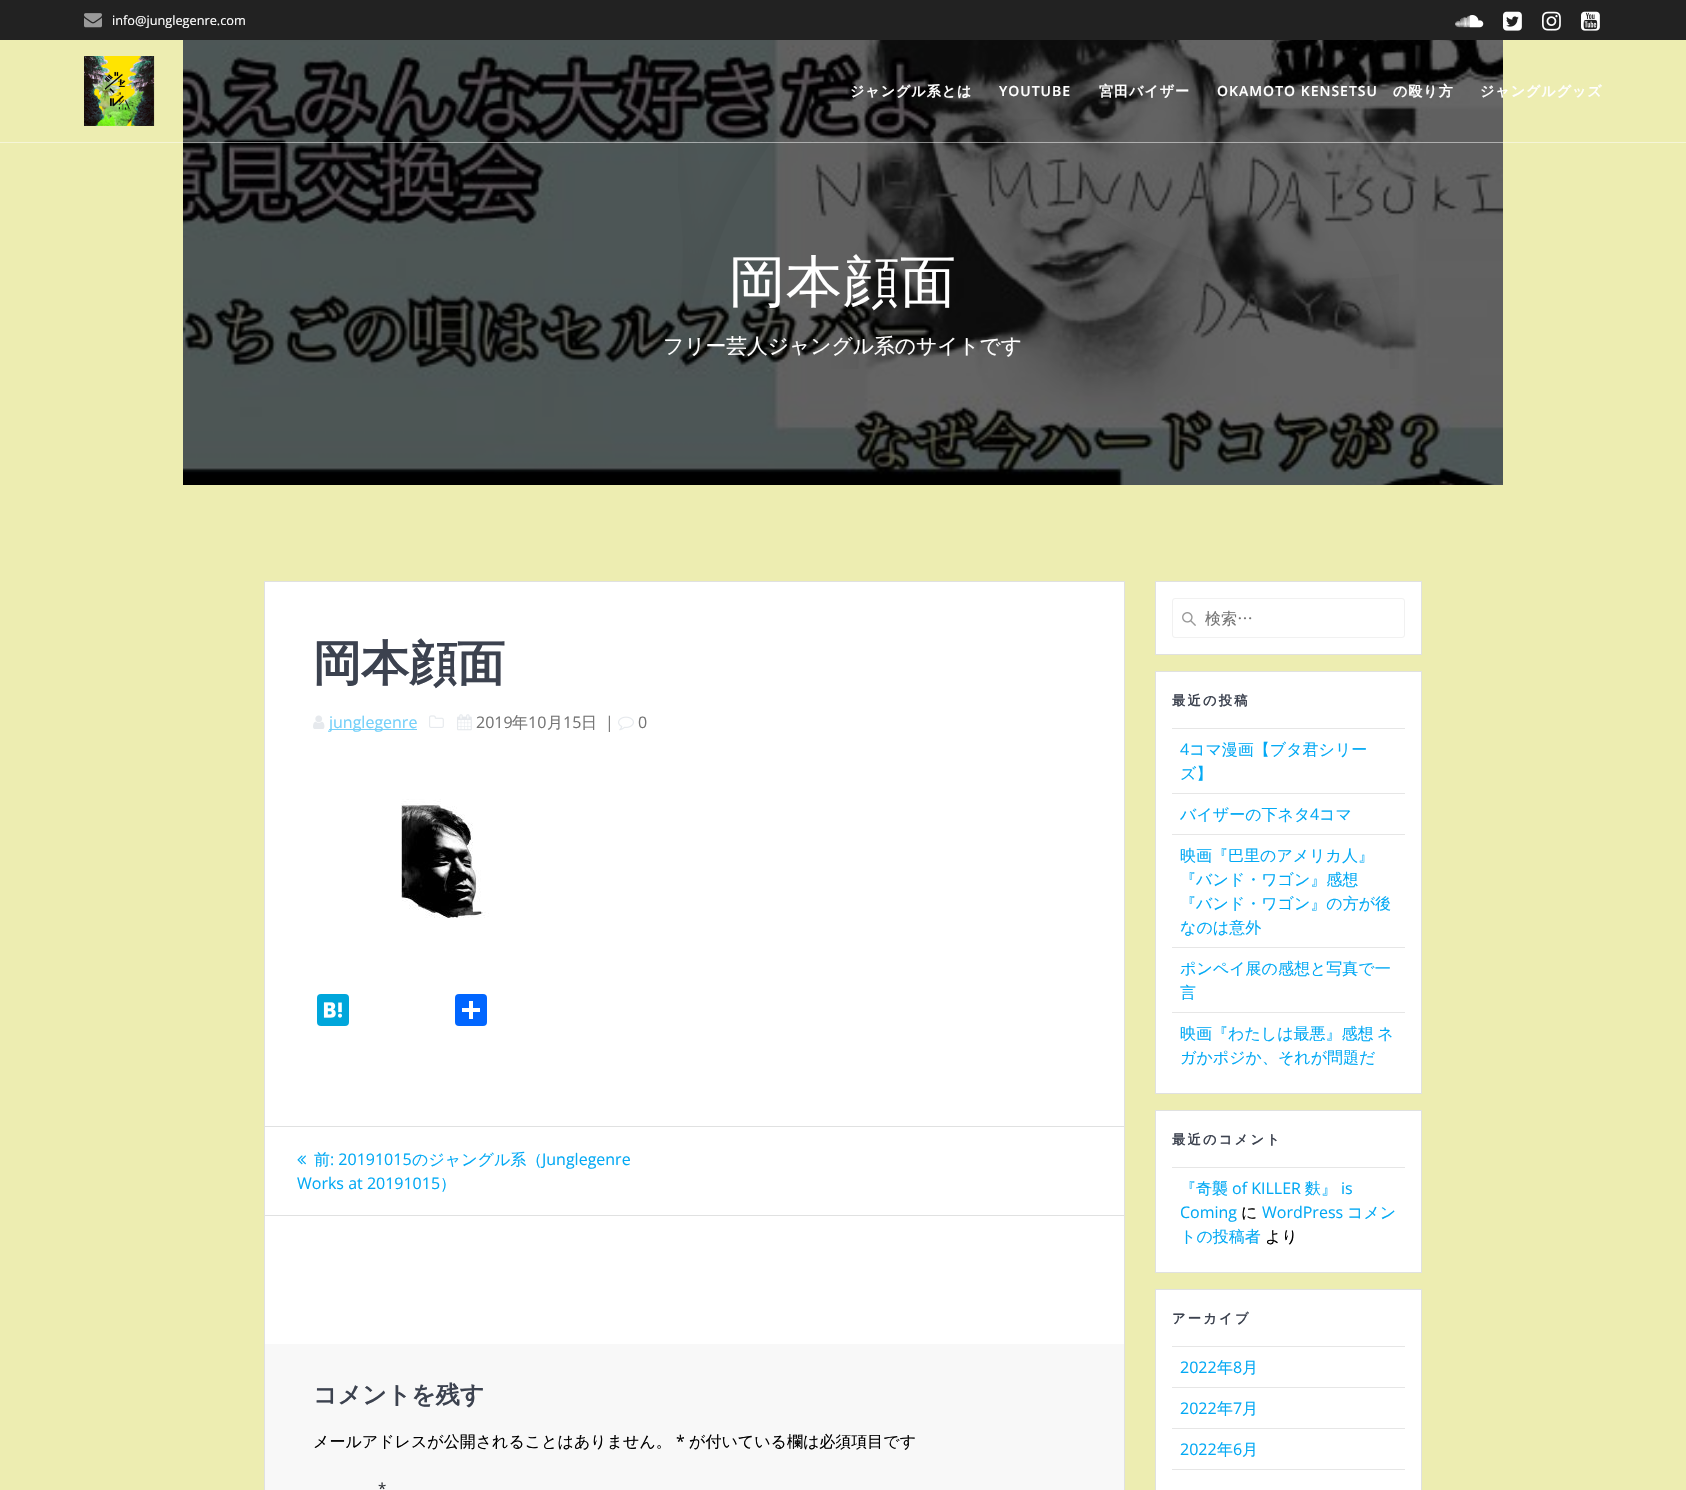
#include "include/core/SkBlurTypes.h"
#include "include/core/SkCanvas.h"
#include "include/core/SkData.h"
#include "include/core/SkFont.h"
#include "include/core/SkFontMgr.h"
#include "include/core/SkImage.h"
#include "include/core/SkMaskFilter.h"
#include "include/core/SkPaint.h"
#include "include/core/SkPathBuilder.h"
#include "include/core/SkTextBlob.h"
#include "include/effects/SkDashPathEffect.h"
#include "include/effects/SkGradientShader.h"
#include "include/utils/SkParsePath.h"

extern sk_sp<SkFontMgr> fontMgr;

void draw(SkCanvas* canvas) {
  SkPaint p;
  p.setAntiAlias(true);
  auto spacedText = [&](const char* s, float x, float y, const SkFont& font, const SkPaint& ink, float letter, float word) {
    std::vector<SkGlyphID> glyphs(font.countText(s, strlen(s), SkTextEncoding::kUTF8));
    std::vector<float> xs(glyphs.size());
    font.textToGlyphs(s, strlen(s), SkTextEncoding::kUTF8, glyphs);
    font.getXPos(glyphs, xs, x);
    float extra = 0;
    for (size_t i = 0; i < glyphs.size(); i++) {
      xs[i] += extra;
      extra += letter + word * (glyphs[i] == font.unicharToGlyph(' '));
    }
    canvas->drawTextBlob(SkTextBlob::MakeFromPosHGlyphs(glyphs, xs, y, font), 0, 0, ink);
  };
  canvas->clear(SkColorSetRGB(237, 237, 177));
  p.setColor(SkColorSetRGB(34, 34, 34));
  canvas->drawRect(SkRect::MakeLTRB(0, 0, 1686, 40), p);
  canvas->drawImageRect(SkImages::DeferredFromEncodedData(SkData::MakeFromFileName("images/1.png")), SkRect::MakeLTRB(84, 13, 102, 28), SkSamplingOptions());
  canvas->drawImageRect(SkImages::DeferredFromEncodedData(SkData::MakeFromFileName("images/2.png")), SkRect::MakeLTRB(1455, 15, 1484, 28), SkSamplingOptions());
  canvas->drawImageRect(SkImages::DeferredFromEncodedData(SkData::MakeFromFileName("images/3.png")), SkRect::MakeLTRB(1503, 11, 1522, 31), SkSamplingOptions());
  canvas->drawImageRect(SkImages::DeferredFromEncodedData(SkData::MakeFromFileName("images/4.png")), SkRect::MakeLTRB(1542, 11, 1561, 31), SkSamplingOptions());
  canvas->drawImageRect(SkImages::DeferredFromEncodedData(SkData::MakeFromFileName("images/5.png")), SkRect::MakeLTRB(1581, 11, 1600, 31), SkSamplingOptions());
  canvas->drawImageRect(SkImages::DeferredFromEncodedData(SkData::MakeFromFileName("images/7.png")), SkRect::MakeLTRB(183, 40, 1503, 485), SkSamplingOptions());
  canvas->drawImageRect(SkImages::DeferredFromEncodedData(SkData::MakeFromFileName("images/8.png")), SkRect::MakeLTRB(678, 119, 1399, 369), SkSamplingOptions());
  p.setColor(SkColorSetARGB(128, 255, 255, 255));
  canvas->drawRect(SkRect::MakeLTRB(0, 142, 1686, 143), p);
  canvas->drawImageRect(SkImages::DeferredFromEncodedData(SkData::MakeFromFileName("images/6.png")), SkRect::MakeLTRB(84, 56, 155, 126), SkSamplingOptions());
  p.setColor(SK_ColorWHITE);
  canvas->drawRect(SkRect::MakeLTRB(265, 582, 1124, 1344), p);
  p.setStyle(SkPaint::kStroke_Style);
  p.setStrokeWidth(1);
  p.setColor(SkColorSetRGB(224, 225, 225));
  canvas->drawRect(SkRect::MakeLTRB(264.5f, 581.5f, 1124.5f, 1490.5f), p);
  canvas->drawImageRect(SkImages::DeferredFromEncodedData(SkData::MakeFromFileName("images/9.png")), SkRect::MakeLTRB(313, 715, 325, 729), SkSamplingOptions());
  p.setStyle(SkPaint::kFill_Style);
  p.setColor(SkColorSetRGB(116, 208, 249));
  canvas->drawRect(SkRect::MakeLTRB(329, 729, 417, 730), p);
  canvas->drawImageRect(SkImages::DeferredFromEncodedData(SkData::MakeFromFileName("images/10.png")), SkRect::MakeLTRB(429, 715, 444, 728), SkSamplingOptions());
  canvas->drawImageRect(SkImages::DeferredFromEncodedData(SkData::MakeFromFileName("images/11.png")), SkRect::MakeLTRB(457, 714, 472, 731), SkSamplingOptions());
  canvas->drawImageRect(SkImages::DeferredFromEncodedData(SkData::MakeFromFileName("images/12.png")), SkRect::MakeLTRB(618, 716, 634, 731), SkSamplingOptions());
  canvas->drawImageRect(SkImages::DeferredFromEncodedData(SkData::MakeFromFileName("images/13.png")), SkRect::MakeLTRB(401, 799, 489, 918), SkSamplingOptions());
  p.setColor(SkColorSetRGB(0, 166, 219));
  canvas->drawRoundRect(SkRect::MakeLTRB(317, 994, 349, 1026), 4, 4, p);
  canvas->drawImageRect(SkImages::DeferredFromEncodedData(SkData::MakeFromFileName("images/14.png")), SkRect::MakeLTRB(323, 1002, 342, 1018), SkSamplingOptions());
  p.setColor(SkColorSetRGB(1, 102, 255));
  canvas->drawRoundRect(SkRect::MakeLTRB(455, 994, 487, 1026), 4, 4, p);
  p.setColor(SK_ColorWHITE);
  canvas->drawRect(SkRect::MakeLTRB(469, 1001, 473, 1019), p);
  canvas->drawRect(SkRect::MakeLTRB(462, 1008, 480, 1012), p);
  p.setColor(SkColorSetRGB(224, 225, 225));
  canvas->drawRect(SkRect::MakeLTRB(265, 1126, 1124, 1127), p);
  canvas->drawRect(SkRect::MakeLTRB(265, 1215, 1124, 1216), p);
  canvas->drawImageRect(SkImages::DeferredFromEncodedData(SkData::MakeFromFileName("images/15.png")), SkRect::MakeLTRB(297, 1155, 306, 1165), SkSamplingOptions());
  p.setColor(SkColorSetRGB(248, 248, 248));
  canvas->drawRect(SkRect::MakeLTRB(265, 1344, 1124, 1490), p);
  p.setColor(SK_ColorWHITE);
  canvas->drawRect(SkRect::MakeLTRB(1155.5f, 581.5f, 1421.5f, 654.5f), p);
  p.setStyle(SkPaint::kStroke_Style);
  p.setColor(SkColorSetRGB(224, 225, 225));
  canvas->drawRect(SkRect::MakeLTRB(1155.5f, 581.5f, 1421.5f, 654.5f), p);
  canvas->drawImageRect(SkImages::DeferredFromEncodedData(SkData::MakeFromFileName("images/16.png")), SkRect::MakeLTRB(1182, 612, 1196, 626), SkSamplingOptions());
  p.setColor(SkColorSetRGB(241, 241, 241));
  canvas->drawRoundRect(SkRect::MakeLTRB(1172.5f, 598.5f, 1404.5f, 637.5f), 2.5f, 2.5f, p);
  p.setStyle(SkPaint::kFill_Style);
  p.setColor(SK_ColorWHITE);
  canvas->drawRect(SkRect::MakeLTRB(1155.5f, 671.5f, 1421.5f, 1093.5f), p);
  p.setStyle(SkPaint::kStroke_Style);
  p.setColor(SkColorSetRGB(224, 225, 225));
  canvas->drawRect(SkRect::MakeLTRB(1155.5f, 671.5f, 1421.5f, 1093.5f), p);
  p.setStyle(SkPaint::kFill_Style);
  p.setColor(SkColorSetRGB(230, 230, 230));
  canvas->drawRect(SkRect::MakeLTRB(1172, 728, 1405, 729), p);
  canvas->drawRect(SkRect::MakeLTRB(1172, 793, 1405, 794), p);
  canvas->drawRect(SkRect::MakeLTRB(1172, 834, 1405, 835), p);
  canvas->drawRect(SkRect::MakeLTRB(1172, 947, 1405, 948), p);
  canvas->drawRect(SkRect::MakeLTRB(1172, 1012, 1405, 1013), p);
  p.setColor(SK_ColorWHITE);
  canvas->drawRect(SkRect::MakeLTRB(1155.5f, 1110.5f, 1421.5f, 1272.5f), p);
  p.setStyle(SkPaint::kStroke_Style);
  p.setColor(SkColorSetRGB(224, 225, 225));
  canvas->drawRect(SkRect::MakeLTRB(1155.5f, 1110.5f, 1421.5f, 1272.5f), p);
  p.setStyle(SkPaint::kFill_Style);
  p.setColor(SkColorSetRGB(230, 230, 230));
  canvas->drawRect(SkRect::MakeLTRB(1172, 1167, 1405, 1168), p);
  p.setColor(SK_ColorWHITE);
  canvas->drawRect(SkRect::MakeLTRB(1155.5f, 1289.5f, 1421.5f, 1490.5f), p);
  p.setStyle(SkPaint::kStroke_Style);
  p.setColor(SkColorSetRGB(224, 225, 225));
  canvas->drawRect(SkRect::MakeLTRB(1155.5f, 1289.5f, 1421.5f, 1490.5f), p);
  p.setStyle(SkPaint::kFill_Style);
  p.setColor(SkColorSetRGB(230, 230, 230));
  canvas->drawRect(SkRect::MakeLTRB(1172, 1346, 1405, 1347), p);
  canvas->drawRect(SkRect::MakeLTRB(1172, 1387, 1405, 1388), p);
  canvas->drawRect(SkRect::MakeLTRB(1172, 1428, 1405, 1429), p);
  canvas->drawRect(SkRect::MakeLTRB(1172, 1469, 1405, 1470), p);
  SkFont font1(fontMgr->matchFamilyStyle("Open Sans", SkFontStyle::Normal()), 12.75f);
  font1.setSubpixel(true);
  p.setColor(SK_ColorWHITE);
  canvas->drawString("info@junglegenre.com", 112, 25, font1, p);
  SkFont font2(fontMgr->matchFamilyStyle("WenQuanYi Zen Hei", SkFontStyle::Bold()), 14);
  font2.setSubpixel(true);
  spacedText("ジャングル系とは", 850, 96, font2, p, 1, 0);
  SkFont font3(fontMgr->matchFamilyStyle("Open Sans", SkFontStyle(600, SkFontStyle::kNormal_Width, SkFontStyle::kUpright_Slant)), 14);
  font3.setSubpixel(true);
  spacedText("YOUTUBE", 999, 96, font3, p, 1, 0);
  spacedText("宮田バイザー", 1099, 96, font2, p, 1, 0);
  spacedText("OKAMOTO KENSETSU", 1217, 96, font3, p, 1, 0);
  spacedText("の殴り方", 1393, 96, font2, p, 1, 0);
  spacedText("ジャングルグッズ", 1480, 96, font2, p, 1, 0);
  SkFont font4(fontMgr->matchFamilyStyle("WenQuanYi Zen Hei", SkFontStyle(500, SkFontStyle::kNormal_Width, SkFontStyle::kUpright_Slant)), 56);
  font4.setSubpixel(true);
  spacedText("岡本顔面", 729, 301, font4, p, 1, 0);
  SkFont font5(fontMgr->matchFamilyStyle("WenQuanYi Zen Hei", SkFontStyle(500, SkFontStyle::kNormal_Width, SkFontStyle::kUpright_Slant)), 20.75f);
  font5.setSubpixel(true);
  canvas->drawString("フリー芸人ジャングル系のサイトです", 663, 353, font5, p);
  SkFont font6(fontMgr->matchFamilyStyle("WenQuanYi Zen Hei", SkFontStyle::Bold()), 48);
  font6.setSubpixel(true);
  p.setColor(SkColorSetRGB(60, 66, 79));
  canvas->drawString("岡本顔面", 313, 680, font6, p);
  SkFont font7(fontMgr->matchFamilyStyle("Open Sans", SkFontStyle::Normal()), 16);
  font7.setSubpixel(true);
  p.setColor(SkColorSetRGB(116, 208, 249));
  canvas->drawString("junglegenre", 329, 728, font7, p);
  p.setColor(SkColorSetRGB(117, 117, 117));
  canvas->drawString("2019", 476, 728, font7, p);
  SkFont font8(fontMgr->matchFamilyStyle("WenQuanYi Zen Hei", SkFontStyle(500, SkFontStyle::kNormal_Width, SkFontStyle::kUpright_Slant)), 16);
  font8.setSubpixel(true);
  canvas->drawString("年", 512, 728, font8, p);
  canvas->drawString("10", 528, 728, font7, p);
  canvas->drawString("月", 547, 728, font8, p);
  canvas->drawString("15", 563, 728, font7, p);
  canvas->drawString("日", 581, 728, font8, p);
  canvas->drawString("|", 605, 728, font7, p);
  canvas->drawString("0", 638, 728, font7, p);
  p.setColor(SkColorSetRGB(3, 169, 244));
  canvas->drawString("前", 314, 1165, font8, p);
  canvas->drawString(": 20191015", 330, 1165, font7, p);
  canvas->drawString("のジャングル系（", 412, 1165, font8, p);
  canvas->drawString("Junglegenre", 542, 1165, font7, p);
  canvas->drawString("Works at 20191015", 297, 1189, font7, p);
  canvas->drawString("）", 440, 1189, font8, p);
  SkFont font9(fontMgr->matchFamilyStyle("WenQuanYi Zen Hei", SkFontStyle::Bold()), 24);
  font9.setSubpixel(true);
  p.setColor(SkColorSetRGB(60, 66, 79));
  canvas->drawString("コメントを残す", 313, 1403, font9, p);
  p.setColor(SK_ColorBLACK);
  canvas->drawString("メールアドレスが公開されることはありません。", 313, 1447, font8, p);
  canvas->drawString("*", 676, 1447, font7, p);
  canvas->drawString("が付いている欄は必須項目です", 689, 1447, font8, p);
  SkFont font10(fontMgr->matchFamilyStyle("Open Sans", SkFontStyle::Normal()), 15);
  font10.setSubpixel(true);
  p.setColor(SkColorSetRGB(49, 52, 57));
  canvas->drawString("*", 378, 1494, font10, p);
  p.setColor(SkColorSetRGB(117, 117, 117));
  canvas->drawString("検索…", 1205, 624, font8, p);
  SkFont font11(fontMgr->matchFamilyStyle("WenQuanYi Zen Hei", SkFontStyle::Bold()), 13.25f);
  font11.setSubpixel(true);
  p.setColor(SkColorSetRGB(60, 66, 79));
  spacedText("最近の投稿", 1172, 705, font11, p, 2.25f, 0);
  p.setColor(SkColorSetRGB(3, 169, 244));
  canvas->drawString("4", 1180, 755, font7, p);
  canvas->drawString("コマ漫画【ブタ君シリー", 1189, 755, font8, p);
  canvas->drawString("ズ】", 1180, 779, font8, p);
  canvas->drawString("バイザーの下ネタ", 1180, 820, font8, p);
  canvas->drawString("4", 1310, 820, font7, p);
  canvas->drawString("コマ", 1319, 820, font8, p);
  canvas->drawString("映画『巴里のアメリカ人』", 1180, 861, font8, p);
  canvas->drawString("『バンド・ワゴン』感想", 1180, 885, font8, p);
  canvas->drawString("『バンド・ワゴン』の方が後", 1180, 909, font8, p);
  canvas->drawString("なのは意外", 1180, 933, font8, p);
  canvas->drawString("ポンペイ展の感想と写真で一", 1180, 974, font8, p);
  canvas->drawString("言", 1180, 998, font8, p);
  spacedText("映画『わたしは最悪』感想 ネ", 1180, 1039, font8, p, 0, -1);
  canvas->drawString("ガかポジか、それが問題だ", 1180, 1063, font8, p);
  p.setColor(SkColorSetRGB(60, 66, 79));
  spacedText("最近のコメント", 1172, 1144, font11, p, 2.25f, 0);
  p.setColor(SkColorSetRGB(3, 169, 244));
  canvas->drawString("『奇襲", 1180, 1194, font8, p);
  canvas->drawString("of KILLER", 1232, 1194, font7, p);
  canvas->drawString("麩』", 1305, 1194, font8, p);
  canvas->drawString("is", 1341, 1194, font7, p);
  canvas->drawString("Coming", 1180, 1218, font7, p);
  p.setColor(SK_ColorBLACK);
  canvas->drawString("に", 1241, 1218, font8, p);
  p.setColor(SkColorSetRGB(3, 169, 244));
  canvas->drawString("WordPress", 1262, 1218, font7, p);
  canvas->drawString("コメン", 1347, 1218, font8, p);
  canvas->drawString("トの投稿者", 1180, 1242, font8, p);
  p.setColor(SK_ColorBLACK);
  canvas->drawString("より", 1265, 1242, font8, p);
  p.setColor(SkColorSetRGB(60, 66, 79));
  spacedText("アーカイブ", 1172, 1323, font11, p, 2.25f, 0);
  p.setColor(SkColorSetRGB(3, 169, 244));
  canvas->drawString("2022", 1180, 1373, font7, p);
  canvas->drawString("年", 1217, 1373, font8, p);
  canvas->drawString("8", 1233, 1373, font7, p);
  canvas->drawString("月", 1242, 1373, font8, p);
  canvas->drawString("2022", 1180, 1414, font7, p);
  canvas->drawString("年", 1217, 1414, font8, p);
  canvas->drawString("7", 1233, 1414, font7, p);
  canvas->drawString("月", 1242, 1414, font8, p);
  canvas->drawString("2022", 1180, 1455, font7, p);
  canvas->drawString("年", 1217, 1455, font8, p);
  canvas->drawString("6", 1233, 1455, font7, p);
  canvas->drawString("月", 1242, 1455, font8, p);
}
